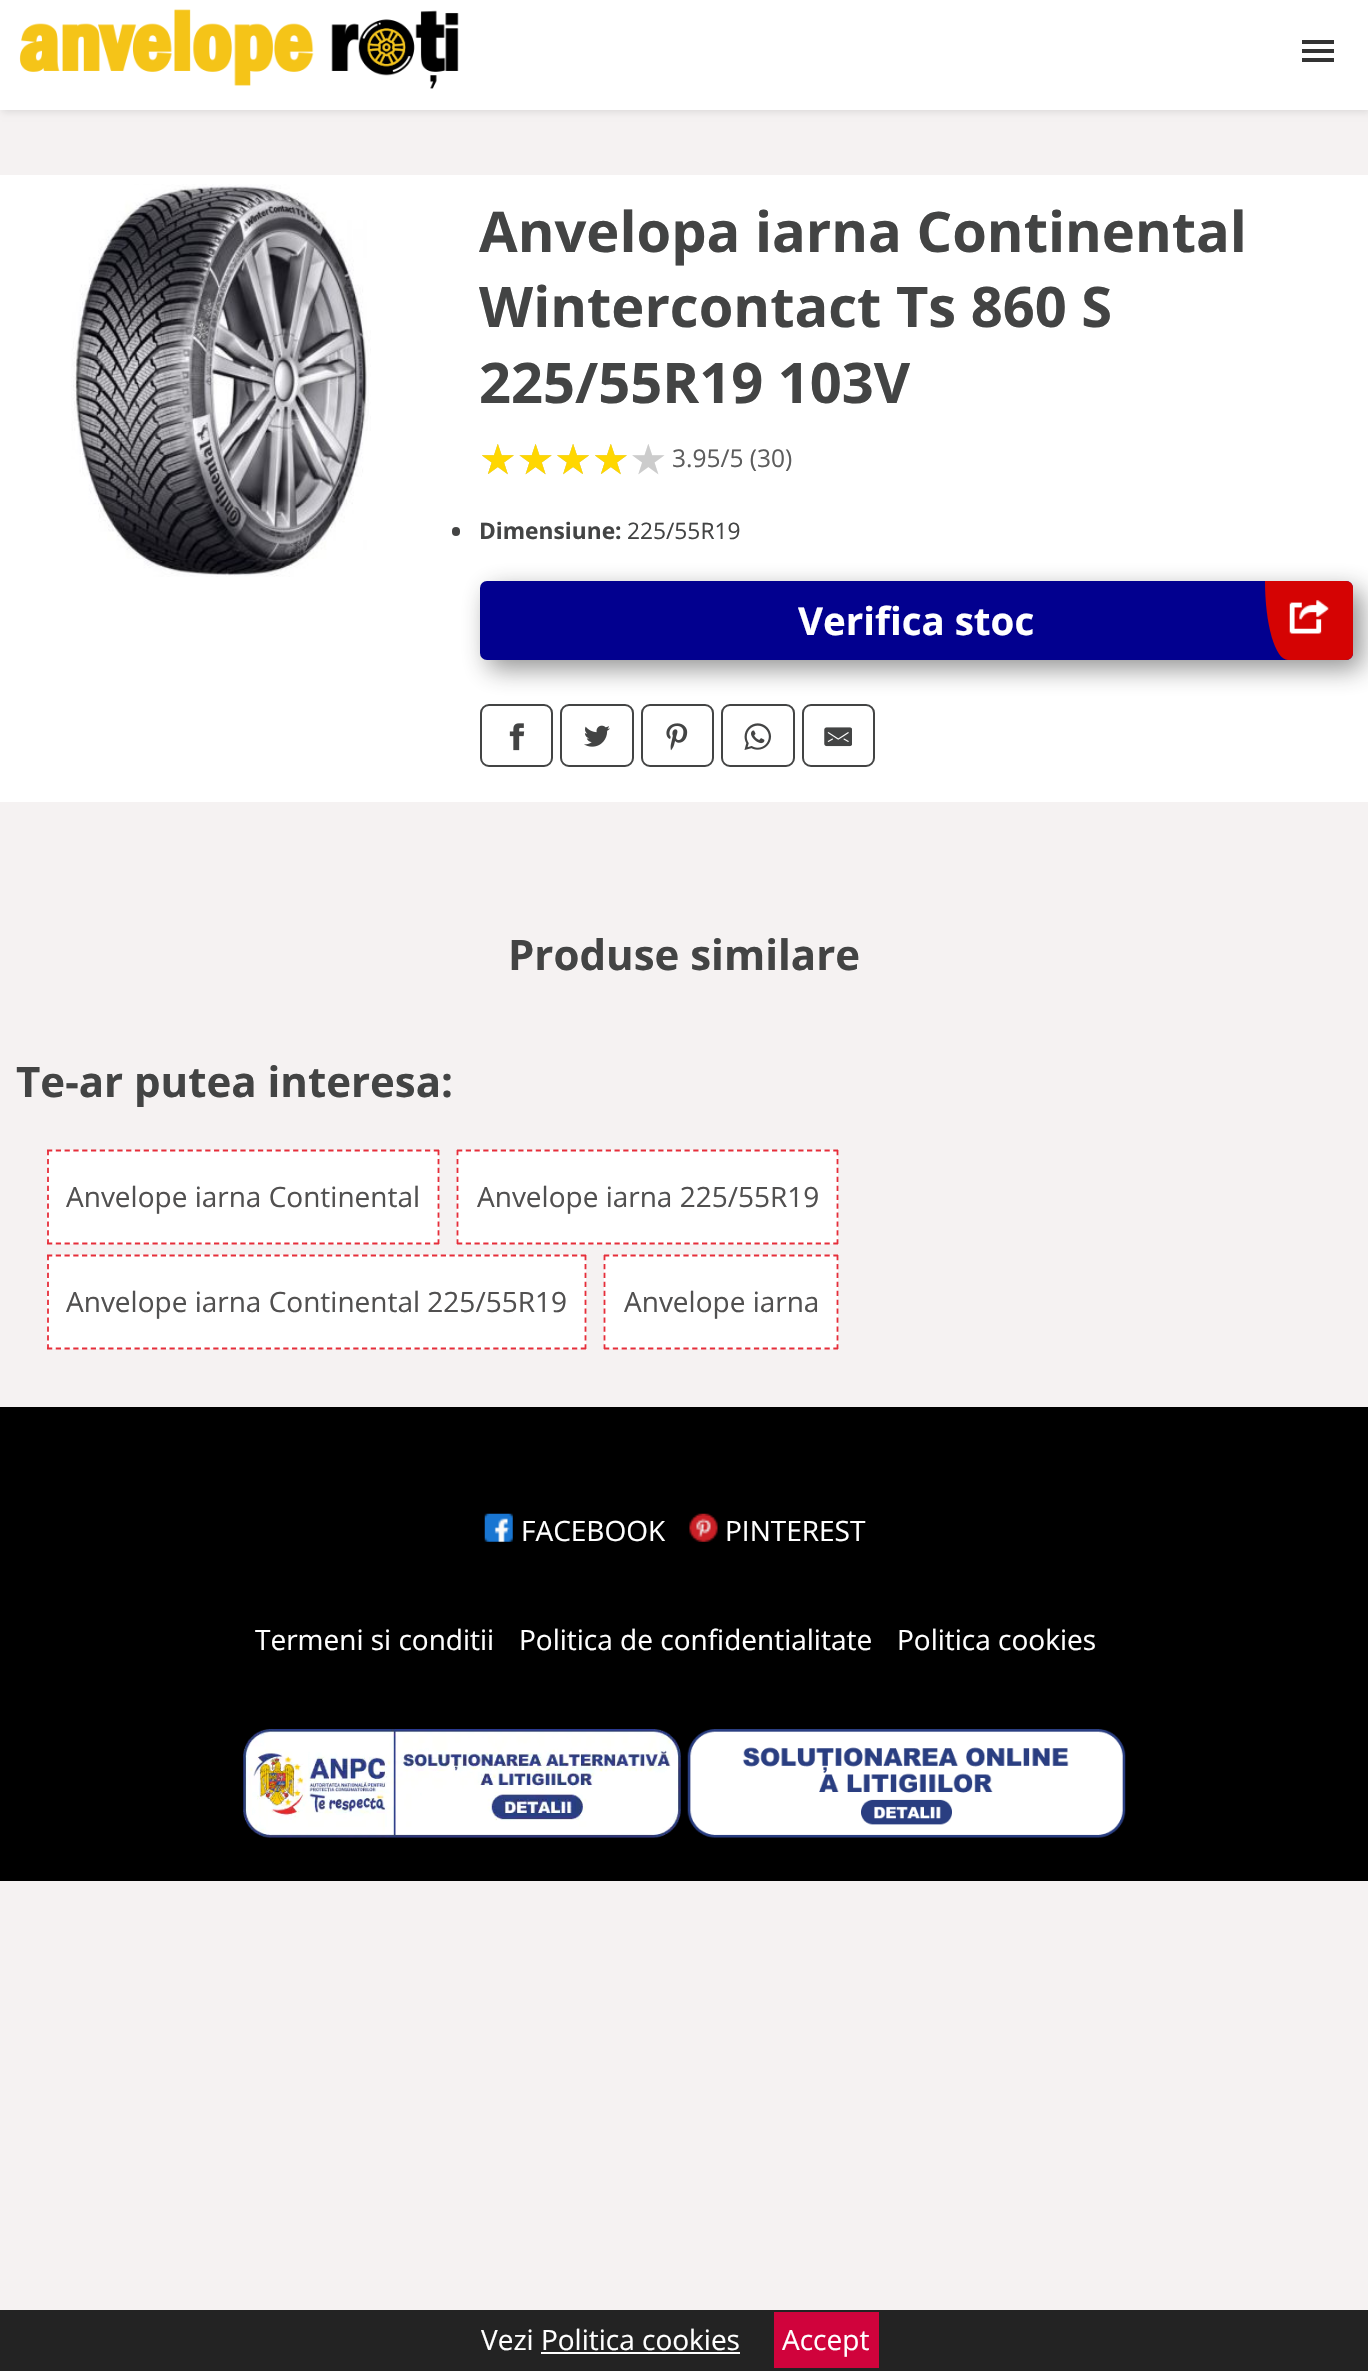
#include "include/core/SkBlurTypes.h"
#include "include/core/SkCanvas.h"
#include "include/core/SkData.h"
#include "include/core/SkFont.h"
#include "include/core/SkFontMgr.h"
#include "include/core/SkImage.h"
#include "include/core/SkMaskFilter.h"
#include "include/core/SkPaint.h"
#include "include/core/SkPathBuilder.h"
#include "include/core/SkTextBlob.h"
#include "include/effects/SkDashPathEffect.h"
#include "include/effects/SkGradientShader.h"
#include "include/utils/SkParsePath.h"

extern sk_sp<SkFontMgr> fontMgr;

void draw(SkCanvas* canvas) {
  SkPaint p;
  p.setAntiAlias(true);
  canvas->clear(SkColorSetRGB(245, 242, 242));
  p.setColor(SkColorSetARGB(26, 0, 0, 0));
  p.setMaskFilter(SkMaskFilter::MakeBlur(kNormal_SkBlurStyle, 3.5f));
  canvas->drawRect(SkRect::MakeLTRB(2, 2, 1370, 112), p);
  p.setMaskFilter(nullptr);
  p.setColor(SK_ColorWHITE);
  canvas->drawRect(SkRect::MakeLTRB(0, 0, 1368, 110), p);
  canvas->drawImageRect(SkImages::DeferredFromEncodedData(SkData::MakeFromFileName("images/1.png")), SkRect::MakeLTRB(19, 9, 459, 89), SkSamplingOptions());
  p.setColor(SkColorSetRGB(51, 51, 51));
  canvas->drawRect(SkRect::MakeLTRB(1302, 49, 1334, 53), p);
  canvas->drawRect(SkRect::MakeLTRB(1302, 40, 1334, 44), p);
  canvas->drawRect(SkRect::MakeLTRB(1302, 58, 1334, 62), p);
  p.setColor(SK_ColorWHITE);
  canvas->drawRect(SkRect::MakeLTRB(0, 175, 1368, 802), p);
  canvas->drawImageRect(SkImages::DeferredFromEncodedData(SkData::MakeFromFileName("images/2.png")), SkRect::MakeLTRB(71, 184, 371, 577), SkSamplingOptions());
  p.setColor(SkColorSetRGB(67, 68, 68));
  canvas->drawRoundRect(SkRect::MakeLTRB(452, 527, 460, 536), 4, 4, p);
  p.setColor(SkColorSetARGB(128, 39, 39, 39));
  p.setMaskFilter(SkMaskFilter::MakeBlur(kNormal_SkBlurStyle, 13));
  canvas->drawRoundRect(SkRect::MakeLTRB(488, 590, 1362, 669), 7, 7, p);
  p.setMaskFilter(nullptr);
  p.setColor(SkColorSetRGB(2, 0, 143));
  canvas->drawRoundRect(SkRect::MakeLTRB(480, 581, 1353, 660), 7, 7, p);
  p.setColor(SkColorSetRGB(213, 3, 3));
  canvas->drawPath(SkPathBuilder().moveTo(1265, 581).lineTo(1346, 581).cubicTo(1350, 581, 1353, 584, 1353, 588).lineTo(1353, 653).cubicTo(1353, 657, 1350, 660, 1346, 660).lineTo(1288, 660).cubicTo(1275, 660, 1265, 624, 1265, 581).close().detach(), p);
  canvas->drawImageRect(SkImages::DeferredFromEncodedData(SkData::MakeFromFileName("images/3.png")), SkRect::MakeLTRB(1289, 600, 1329, 634), SkSamplingOptions());
  p.setStyle(SkPaint::kStroke_Style);
  p.setStrokeWidth(2);
  p.setColor(SkColorSetRGB(67, 68, 68));
  canvas->drawRoundRect(SkRect::MakeLTRB(481, 705, 552, 766), 8, 8, p);
  canvas->drawImageRect(SkImages::DeferredFromEncodedData(SkData::MakeFromFileName("images/4.png")), SkRect::MakeLTRB(509, 723, 525, 751), SkSamplingOptions());
  canvas->drawRoundRect(SkRect::MakeLTRB(561, 705, 633, 766), 8, 8, p);
  canvas->drawImageRect(SkImages::DeferredFromEncodedData(SkData::MakeFromFileName("images/5.png")), SkRect::MakeLTRB(584, 725, 610, 747), SkSamplingOptions());
  canvas->drawRoundRect(SkRect::MakeLTRB(642, 705, 713, 766), 8, 8, p);
  canvas->drawImageRect(SkImages::DeferredFromEncodedData(SkData::MakeFromFileName("images/6.png")), SkRect::MakeLTRB(666, 723, 688, 751), SkSamplingOptions());
  canvas->drawRoundRect(SkRect::MakeLTRB(722, 705, 794, 766), 8, 8, p);
  canvas->drawImageRect(SkImages::DeferredFromEncodedData(SkData::MakeFromFileName("images/7.png")), SkRect::MakeLTRB(744, 723, 772, 750), SkSamplingOptions());
  canvas->drawRoundRect(SkRect::MakeLTRB(803, 705, 874, 766), 8, 8, p);
  canvas->drawImageRect(SkImages::DeferredFromEncodedData(SkData::MakeFromFileName("images/8.png")), SkRect::MakeLTRB(824, 727, 852, 747), SkSamplingOptions());
  p.setStyle(SkPaint::kFill_Style);
  p.setColor(SK_ColorWHITE);
  canvas->drawRect(SkRect::MakeLTRB(47, 1150, 439, 1244), p);
  p.setStyle(SkPaint::kStroke_Style);
  p.setStrokeWidth(1.8f);
  p.setColor(SkColorSetRGB(230, 46, 58));
  p.setPathEffect(SkDashPathEffect::Make({{5.25f, 3.54f}}, 0));
  canvas->drawPath(SkPathBuilder().moveTo(47, 1150.5f).lineTo(439, 1150.5f).detach(), p);
  p.setPathEffect(nullptr);
  p.setPathEffect(SkDashPathEffect::Make({{5.25f, 3.68f}}, 0));
  canvas->drawPath(SkPathBuilder().moveTo(438.5f, 1150).lineTo(438.5f, 1244).detach(), p);
  p.setPathEffect(nullptr);
  p.setPathEffect(SkDashPathEffect::Make({{5.25f, 3.54f}}, 0));
  canvas->drawPath(SkPathBuilder().moveTo(47, 1243.5f).lineTo(439, 1243.5f).detach(), p);
  p.setPathEffect(nullptr);
  p.setPathEffect(SkDashPathEffect::Make({{5.25f, 3.68f}}, 0));
  canvas->drawPath(SkPathBuilder().moveTo(48, 1150).lineTo(48, 1244).detach(), p);
  p.setPathEffect(nullptr);
  p.setStyle(SkPaint::kFill_Style);
  p.setColor(SK_ColorWHITE);
  canvas->drawRect(SkRect::MakeLTRB(457, 1150, 838, 1244), p);
  p.setStyle(SkPaint::kStroke_Style);
  p.setColor(SkColorSetRGB(230, 46, 58));
  p.setPathEffect(SkDashPathEffect::Make({{5.25f, 3.5f}}, 0));
  canvas->drawPath(SkPathBuilder().moveTo(457, 1150.5f).lineTo(838, 1150.5f).detach(), p);
  p.setPathEffect(nullptr);
  p.setPathEffect(SkDashPathEffect::Make({{5.25f, 3.68f}}, 0));
  canvas->drawPath(SkPathBuilder().moveTo(837.5f, 1150).lineTo(837.5f, 1244).detach(), p);
  p.setPathEffect(nullptr);
  p.setPathEffect(SkDashPathEffect::Make({{5.25f, 3.5f}}, 0));
  canvas->drawPath(SkPathBuilder().moveTo(457, 1243.5f).lineTo(838, 1243.5f).detach(), p);
  p.setPathEffect(nullptr);
  p.setPathEffect(SkDashPathEffect::Make({{5.25f, 3.68f}}, 0));
  canvas->drawPath(SkPathBuilder().moveTo(457.5f, 1150).lineTo(457.5f, 1244).detach(), p);
  p.setPathEffect(nullptr);
  p.setStyle(SkPaint::kFill_Style);
  p.setColor(SK_ColorWHITE);
  canvas->drawRect(SkRect::MakeLTRB(47, 1255, 586, 1349), p);
  p.setStyle(SkPaint::kStroke_Style);
  p.setColor(SkColorSetRGB(230, 46, 58));
  p.setPathEffect(SkDashPathEffect::Make({{5.25f, 3.5f}}, 0));
  canvas->drawPath(SkPathBuilder().moveTo(47, 1255.5f).lineTo(586, 1255.5f).detach(), p);
  p.setPathEffect(nullptr);
  p.setPathEffect(SkDashPathEffect::Make({{5.25f, 3.68f}}, 0));
  canvas->drawPath(SkPathBuilder().moveTo(585.5f, 1255).lineTo(585.5f, 1349).detach(), p);
  p.setPathEffect(nullptr);
  p.setPathEffect(SkDashPathEffect::Make({{5.25f, 3.5f}}, 0));
  canvas->drawPath(SkPathBuilder().moveTo(47, 1348.5f).lineTo(586, 1348.5f).detach(), p);
  p.setPathEffect(nullptr);
  p.setPathEffect(SkDashPathEffect::Make({{5.25f, 3.68f}}, 0));
  canvas->drawPath(SkPathBuilder().moveTo(48, 1255).lineTo(48, 1349).detach(), p);
  p.setPathEffect(nullptr);
  p.setStyle(SkPaint::kFill_Style);
  p.setColor(SK_ColorWHITE);
  canvas->drawRect(SkRect::MakeLTRB(604, 1255, 838, 1349), p);
  p.setStyle(SkPaint::kStroke_Style);
  p.setColor(SkColorSetRGB(230, 46, 58));
  p.setPathEffect(SkDashPathEffect::Make({{5.25f, 3.57f}}, 0));
  canvas->drawPath(SkPathBuilder().moveTo(604, 1255.5f).lineTo(838, 1255.5f).detach(), p);
  p.setPathEffect(nullptr);
  p.setPathEffect(SkDashPathEffect::Make({{5.25f, 3.68f}}, 0));
  canvas->drawPath(SkPathBuilder().moveTo(837.5f, 1255).lineTo(837.5f, 1349).detach(), p);
  p.setPathEffect(nullptr);
  p.setPathEffect(SkDashPathEffect::Make({{5.25f, 3.57f}}, 0));
  canvas->drawPath(SkPathBuilder().moveTo(604, 1348.5f).lineTo(838, 1348.5f).detach(), p);
  p.setPathEffect(nullptr);
  p.setPathEffect(SkDashPathEffect::Make({{5.25f, 3.68f}}, 0));
  canvas->drawPath(SkPathBuilder().moveTo(604.5f, 1255).lineTo(604.5f, 1349).detach(), p);
  p.setPathEffect(nullptr);
  p.setStyle(SkPaint::kFill_Style);
  p.setColor(SK_ColorBLACK);
  canvas->drawRect(SkRect::MakeLTRB(0, 1407, 1368, 1881), p);
  canvas->drawImageRect(SkImages::DeferredFromEncodedData(SkData::MakeFromFileName("images/9.png")), SkRect::MakeLTRB(484, 1513, 513, 1542), SkSamplingOptions());
  canvas->drawImageRect(SkImages::DeferredFromEncodedData(SkData::MakeFromFileName("images/10.png")), SkRect::MakeLTRB(689, 1513, 718, 1542), SkSamplingOptions());
  canvas->drawImageRect(SkImages::DeferredFromEncodedData(SkData::MakeFromFileName("images/11.png")), SkRect::MakeLTRB(243, 1729, 681, 1838), SkSamplingOptions());
  canvas->drawImageRect(SkImages::DeferredFromEncodedData(SkData::MakeFromFileName("images/12.png")), SkRect::MakeLTRB(687, 1729, 1126, 1838), SkSamplingOptions());
  p.setColor(SkColorSetRGB(35, 35, 35));
  canvas->drawRect(SkRect::MakeLTRB(0, 2310, 1368, 2371), p);
  p.setColor(SK_ColorWHITE);
  canvas->drawRect(SkRect::MakeLTRB(541, 2352, 740, 2354), p);
  p.setColor(SkColorSetRGB(208, 3, 60));
  canvas->drawRect(SkRect::MakeLTRB(774, 2312, 879, 2368), p);
  SkFont font1(fontMgr->matchFamilyStyle("Open Sans", SkFontStyle::Bold()), 56);
  font1.setSubpixel(true);
  p.setColor(SkColorSetRGB(67, 68, 68));
  canvas->drawString("Anvelopa iarna Continental", 479, 252, font1, p);
  canvas->drawString("Wintercontact Ts 860 S", 479, 327, font1, p);
  canvas->drawString("225/55R19 103V", 479, 403, font1, p);
  SkFont font2(fontMgr->matchFamilyStyle("DejaVu Sans", SkFontStyle::Normal()), 42);
  font2.setSubpixel(true);
  p.setColor(SkColorSetRGB(204, 204, 204));
  canvas->drawString("★★★★★", 479, 474, font2, p);
  p.setColor(SkColorSetRGB(255, 215, 0));
  canvas->drawString("★★★★", 479, 474, font2, p);
  SkFont font3(fontMgr->matchFamilyStyle("Open Sans", SkFontStyle::Normal()), 24.5f);
  font3.setSubpixel(true);
  p.setColor(SkColorSetRGB(93, 93, 93));
  canvas->drawString("3.95/5 (30)", 672, 467, font3, p);
  SkFont font4(fontMgr->matchFamilyStyle("Open Sans", SkFontStyle::Bold()), 22.75f);
  font4.setSubpixel(true);
  p.setColor(SkColorSetRGB(67, 68, 68));
  canvas->drawString("Dimensiune:", 479, 539, font4, p);
  SkFont font5(fontMgr->matchFamilyStyle("Open Sans", SkFontStyle::Normal()), 22.75f);
  font5.setSubpixel(true);
  canvas->drawString("225/55R19", 627, 539, font5, p);
  SkFont font6(fontMgr->matchFamilyStyle("Open Sans", SkFontStyle::Bold()), 38.5f);
  font6.setSubpixel(true);
  p.setColor(SK_ColorWHITE);
  canvas->drawString("Verifica stoc", 798, 635, font6, p);
  SkFont font7(fontMgr->matchFamilyStyle("Open Sans", SkFontStyle::Bold()), 42);
  font7.setSubpixel(true);
  p.setColor(SkColorSetRGB(67, 68, 68));
  canvas->drawString("Produse similare", 508, 970, font7, p);
  canvas->drawString("Te-ar putea interesa:", 16, 1097, font7, p);
  SkFont font8(fontMgr->matchFamilyStyle("Open Sans", SkFontStyle::Normal()), 28);
  font8.setSubpixel(true);
  p.setColor(SkColorSetRGB(81, 80, 80));
  canvas->drawString("Anvelope iarna Continental", 66, 1207, font8, p);
  canvas->drawString("Anvelope iarna 225/55R19", 477, 1207, font8, p);
  canvas->drawString("Anvelope iarna Continental 225/55R19", 66, 1312, font8, p);
  canvas->drawString("Anvelope iarna", 624, 1312, font8, p);
  p.setColor(SK_ColorWHITE);
  canvas->drawString("FACEBOOK", 521, 1541, font8, p);
  canvas->drawString("PINTEREST", 725, 1541, font8, p);
  canvas->drawString("Termeni si conditii", 255, 1650, font8, p);
  canvas->drawString("Politica de confidentialitate", 519, 1650, font8, p);
  canvas->drawString("Politica cookies", 897, 1650, font8, p);
  canvas->drawString("Vezi Politica cookies", 481, 2350, font8, p);
  canvas->drawString("Accept", 782, 2350, font8, p);
}
